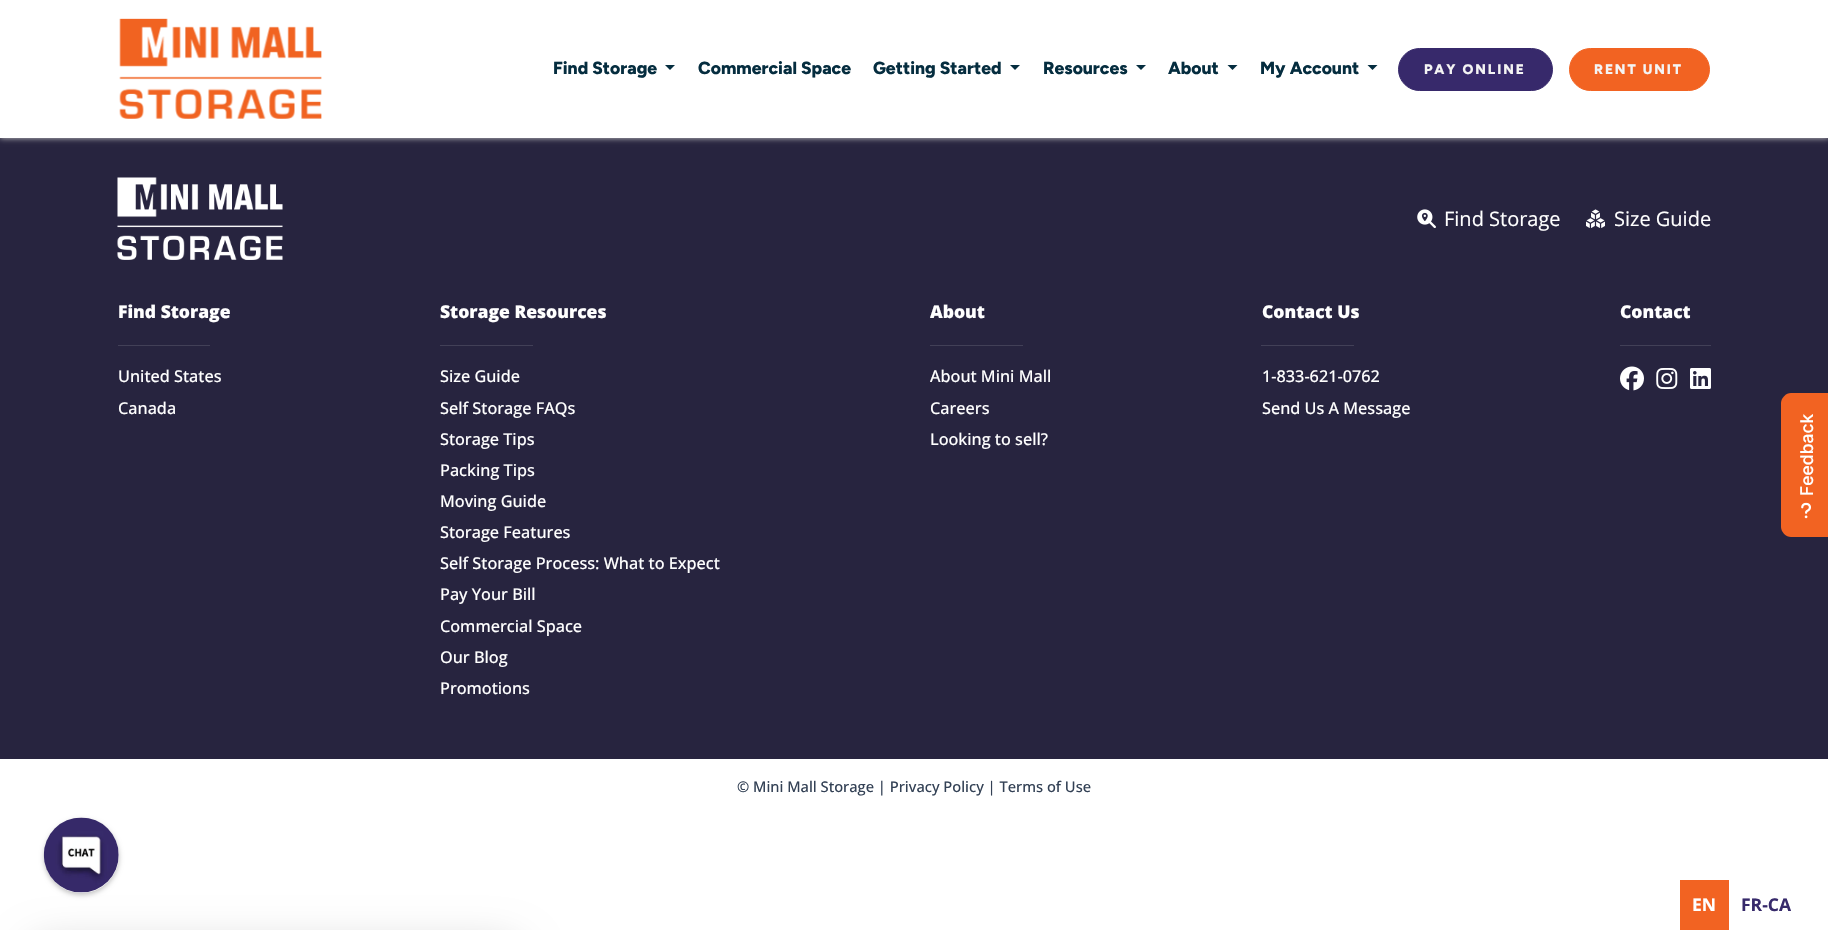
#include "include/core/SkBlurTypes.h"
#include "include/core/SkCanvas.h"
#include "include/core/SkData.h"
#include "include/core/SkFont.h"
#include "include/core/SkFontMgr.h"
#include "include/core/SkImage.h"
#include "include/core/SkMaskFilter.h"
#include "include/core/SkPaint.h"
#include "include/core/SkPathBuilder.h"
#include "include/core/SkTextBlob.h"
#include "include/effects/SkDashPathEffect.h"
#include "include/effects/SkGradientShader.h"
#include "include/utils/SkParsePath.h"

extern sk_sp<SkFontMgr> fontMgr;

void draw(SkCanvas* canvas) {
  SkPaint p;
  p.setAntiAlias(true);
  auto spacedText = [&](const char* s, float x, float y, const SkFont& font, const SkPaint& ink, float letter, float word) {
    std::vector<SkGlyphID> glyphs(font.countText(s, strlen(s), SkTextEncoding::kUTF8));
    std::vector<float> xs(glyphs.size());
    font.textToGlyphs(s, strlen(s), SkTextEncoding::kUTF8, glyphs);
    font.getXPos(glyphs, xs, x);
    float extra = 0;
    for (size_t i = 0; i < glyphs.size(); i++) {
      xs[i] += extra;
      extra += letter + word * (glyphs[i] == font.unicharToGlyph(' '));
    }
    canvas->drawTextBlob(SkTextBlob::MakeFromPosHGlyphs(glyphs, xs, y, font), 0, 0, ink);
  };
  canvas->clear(SK_ColorWHITE);
  p.setColor(SkColorSetRGB(39, 36, 63));
  canvas->drawRect(SkRect::MakeLTRB(0, 138, 1828, 759), p);
  p.setColor(SkColorSetRGB(204, 204, 204));
  p.setMaskFilter(SkMaskFilter::MakeBlur(kNormal_SkBlurStyle, 3));
  canvas->drawRect(SkRect::MakeLTRB(0, 0, 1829, 138), p);
  p.setMaskFilter(nullptr);
  p.setColor(SK_ColorWHITE);
  canvas->drawRect(SkRect::MakeLTRB(0, 0, 1828, 138), p);
  canvas->drawImageRect(SkImages::DeferredFromEncodedData(SkData::MakeFromFileName("images/1.png")), SkRect::MakeLTRB(119, 18, 322, 119), SkSamplingOptions());
  p.setColor(SkColorSetRGB(5, 45, 63));
  canvas->drawPath(SkPathBuilder().moveTo(665, 65).lineTo(675, 65).lineTo(670, 70).close().detach(), p);
  canvas->drawPath(SkPathBuilder().moveTo(1010, 65).lineTo(1020, 65).lineTo(1015, 70).close().detach(), p);
  canvas->drawPath(SkPathBuilder().moveTo(1136, 65).lineTo(1146, 65).lineTo(1141, 70).close().detach(), p);
  canvas->drawPath(SkPathBuilder().moveTo(1227.5f, 65).lineTo(1237.5f, 65).lineTo(1232.5f, 70).close().detach(), p);
  canvas->drawPath(SkPathBuilder().moveTo(1367.5f, 65).lineTo(1377.5f, 65).lineTo(1372.5f, 70).close().detach(), p);
  p.setColor(SkColorSetRGB(55, 41, 107));
  canvas->drawRoundRect(SkRect::MakeLTRB(1398.5f, 48.5f, 1552.5f, 90.5f), 21, 21, p);
  p.setStyle(SkPaint::kStroke_Style);
  p.setStrokeWidth(1);
  canvas->drawRoundRect(SkRect::MakeLTRB(1398.5f, 48.5f, 1552.5f, 90.5f), 21, 21, p);
  p.setStyle(SkPaint::kFill_Style);
  p.setColor(SkColorSetRGB(242, 99, 34));
  canvas->drawRoundRect(SkRect::MakeLTRB(1569.5f, 48.5f, 1709.5f, 90.5f), 21, 21, p);
  p.setStyle(SkPaint::kStroke_Style);
  canvas->drawRoundRect(SkRect::MakeLTRB(1569.5f, 48.5f, 1709.5f, 90.5f), 21, 21, p);
  canvas->drawImageRect(SkImages::DeferredFromEncodedData(SkData::MakeFromFileName("images/2.png")), SkRect::MakeLTRB(117, 177, 283, 260), SkSamplingOptions());
  canvas->drawImageRect(SkImages::DeferredFromEncodedData(SkData::MakeFromFileName("images/3.png")), SkRect::MakeLTRB(1417, 209, 1436, 228), SkSamplingOptions());
  canvas->drawImageRect(SkImages::DeferredFromEncodedData(SkData::MakeFromFileName("images/4.png")), SkRect::MakeLTRB(1586, 209, 1605, 228), SkSamplingOptions());
  p.setStyle(SkPaint::kFill_Style);
  p.setColor(SkColorSetRGB(66, 64, 87));
  canvas->drawRect(SkRect::MakeLTRB(118, 345, 210, 346), p);
  canvas->drawRect(SkRect::MakeLTRB(440, 345, 533, 346), p);
  canvas->drawRect(SkRect::MakeLTRB(930, 345, 1023, 346), p);
  canvas->drawRect(SkRect::MakeLTRB(1261, 345, 1354, 346), p);
  canvas->drawRect(SkRect::MakeLTRB(1620, 345, 1711, 346), p);
  canvas->drawImageRect(SkImages::DeferredFromEncodedData(SkData::MakeFromFileName("images/5.png")), SkRect::MakeLTRB(1620, 366, 1644, 391), SkSamplingOptions());
  canvas->drawImageRect(SkImages::DeferredFromEncodedData(SkData::MakeFromFileName("images/6.png")), SkRect::MakeLTRB(1656, 368, 1678, 389), SkSamplingOptions());
  canvas->drawImageRect(SkImages::DeferredFromEncodedData(SkData::MakeFromFileName("images/7.png")), SkRect::MakeLTRB(1690, 368, 1711, 389), SkSamplingOptions());
  p.setColor(SkColorSetRGB(242, 99, 34));
  canvas->drawPath(SkPathBuilder().moveTo(1781, 527).lineTo(1781, 403).cubicTo(1781, 398, 1786, 393, 1791, 393).lineTo(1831, 393).lineTo(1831, 537).lineTo(1791, 537).cubicTo(1786, 537, 1781, 532, 1781, 527).close().detach(), p);
  canvas->drawImageRect(SkImages::DeferredFromEncodedData(SkData::MakeFromFileName("images/8.png")), SkRect::MakeLTRB(1801, 502, 1811, 519), SkSamplingOptions());
  p.setColor(SkColorSetARGB(64, 0, 0, 0));
  p.setMaskFilter(SkMaskFilter::MakeBlur(kNormal_SkBlurStyle, 2.5f));
  canvas->drawRoundRect(SkRect::MakeLTRB(44, 820, 119, 895), 37.5f, 37.5f, p);
  p.setMaskFilter(nullptr);
  p.setColor(SkColorSetARGB(38, 0, 0, 0));
  p.setMaskFilter(SkMaskFilter::MakeBlur(kNormal_SkBlurStyle, 19));
  canvas->drawRoundRect(SkRect::MakeLTRB(25, 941, 525, 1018), 31, 31, p);
  p.setMaskFilter(nullptr);
  p.setColor(SK_ColorWHITE);
  canvas->drawCircle(81.5f, 855.5f, 37.5f, p);
  canvas->drawImageRect(SkImages::DeferredFromEncodedData(SkData::MakeFromFileName("images/9.png")), SkRect::MakeLTRB(43, 817, 119, 893), SkSamplingOptions());
  p.setColor(SkColorSetRGB(242, 99, 34));
  canvas->drawRect(SkRect::MakeLTRB(1680, 880, 1729, 930), p);
  SkFont font1(fontMgr->matchFamilyStyle("Figtree", SkFontStyle(800, SkFontStyle::kNormal_Width, SkFontStyle::kUpright_Slant)), 17.5f);
  font1.setSubpixel(true);
  p.setColor(SkColorSetRGB(5, 45, 63));
  canvas->drawString("Find Storage", 553, 74, font1, p);
  canvas->drawString("Commercial Space", 698, 74, font1, p);
  canvas->drawString("Getting Started", 873, 74, font1, p);
  canvas->drawString("Resources", 1043, 74, font1, p);
  canvas->drawString("About", 1168, 74, font1, p);
  canvas->drawString("My Account", 1260, 74, font1, p);
  SkFont font2(fontMgr->matchFamilyStyle("Figtree", SkFontStyle(800, SkFontStyle::kNormal_Width, SkFontStyle::kUpright_Slant)), 13.75f);
  font2.setSubpixel(true);
  p.setColor(SkColorSetRGB(244, 244, 244));
  spacedText("PAY ONLINE", 1424, 74, font2, p, 1.9f, 0);
  spacedText("RENT UNIT", 1594, 74, font2, p, 1.9f, 0);
  SkFont font3(fontMgr->matchFamilyStyle("Open Sans", SkFontStyle::Normal()), 20);
  font3.setSubpixel(true);
  p.setColor(SK_ColorWHITE);
  canvas->drawString("Find Storage", 1444, 226, font3, p);
  canvas->drawString("Size Guide", 1614, 226, font3, p);
  SkFont font4(fontMgr->matchFamilyStyle("Open Sans", SkFontStyle(800, SkFontStyle::kNormal_Width, SkFontStyle::kUpright_Slant)), 17.5f);
  font4.setSubpixel(true);
  canvas->drawString("Find Storage", 118, 318, font4, p);
  SkFont font5(fontMgr->matchFamilyStyle("Open Sans", SkFontStyle(500, SkFontStyle::kNormal_Width, SkFontStyle::kUpright_Slant)), 16.25f);
  font5.setSubpixel(true);
  canvas->drawString("United States", 118, 382, font5, p);
  canvas->drawString("Canada", 118, 414, font5, p);
  canvas->drawString("Storage Resources", 440, 318, font4, p);
  canvas->drawString("Size Guide", 440, 382, font5, p);
  canvas->drawString("Self Storage FAQs", 440, 414, font5, p);
  canvas->drawString("Storage Tips", 440, 445, font5, p);
  canvas->drawString("Packing Tips", 440, 476, font5, p);
  canvas->drawString("Moving Guide", 440, 507, font5, p);
  canvas->drawString("Storage Features", 440, 538, font5, p);
  canvas->drawString("Self Storage Process: What to Expect", 440, 569, font5, p);
  canvas->drawString("Pay Your Bill", 440, 600, font5, p);
  canvas->drawString("Commercial Space", 440, 632, font5, p);
  canvas->drawString("Our Blog", 440, 663, font5, p);
  canvas->drawString("Promotions", 440, 694, font5, p);
  canvas->drawString("About", 930, 318, font4, p);
  canvas->drawString("About Mini Mall", 930, 382, font5, p);
  canvas->drawString("Careers", 930, 414, font5, p);
  canvas->drawString("Looking to sell?", 930, 445, font5, p);
  canvas->drawString("Contact Us", 1262, 318, font4, p);
  canvas->drawString("1-833-621-0762", 1262, 382, font5, p);
  canvas->drawString("Send Us A Message", 1262, 414, font5, p);
  canvas->drawString("Contact", 1620, 318, font4, p);
  SkFont font6(fontMgr->matchFamilyStyle("Open Sans", SkFontStyle(500, SkFontStyle::kNormal_Width, SkFontStyle::kUpright_Slant)), 14.7f);
  font6.setSubpixel(true);
  p.setColor(SkColorSetRGB(51, 65, 85));
  canvas->drawString("© Mini Mall Storage | Privacy Policy | Terms of Use", 737, 792, font6, p);
  SkFont font7(fontMgr->matchFamilyStyle("Inter", SkFontStyle(500, SkFontStyle::kNormal_Width, SkFontStyle::kUpright_Slant)), 17.5f);
  font7.setSubpixel(true);
  p.setColor(SK_ColorWHITE);
  canvas->save();
  canvas->rotate(-90, 1813, 496);
  canvas->drawString("Feedback", 1813, 496, font7, p);
  canvas->restore();
  SkFont font8(fontMgr->matchFamilyStyle("Open Sans", SkFontStyle::Bold()), 17.5f);
  font8.setSubpixel(true);
  canvas->drawString("EN", 1692, 911, font8, p);
  p.setColor(SkColorSetRGB(55, 42, 107));
  canvas->drawString("FR-CA", 1741, 911, font8, p);
}
